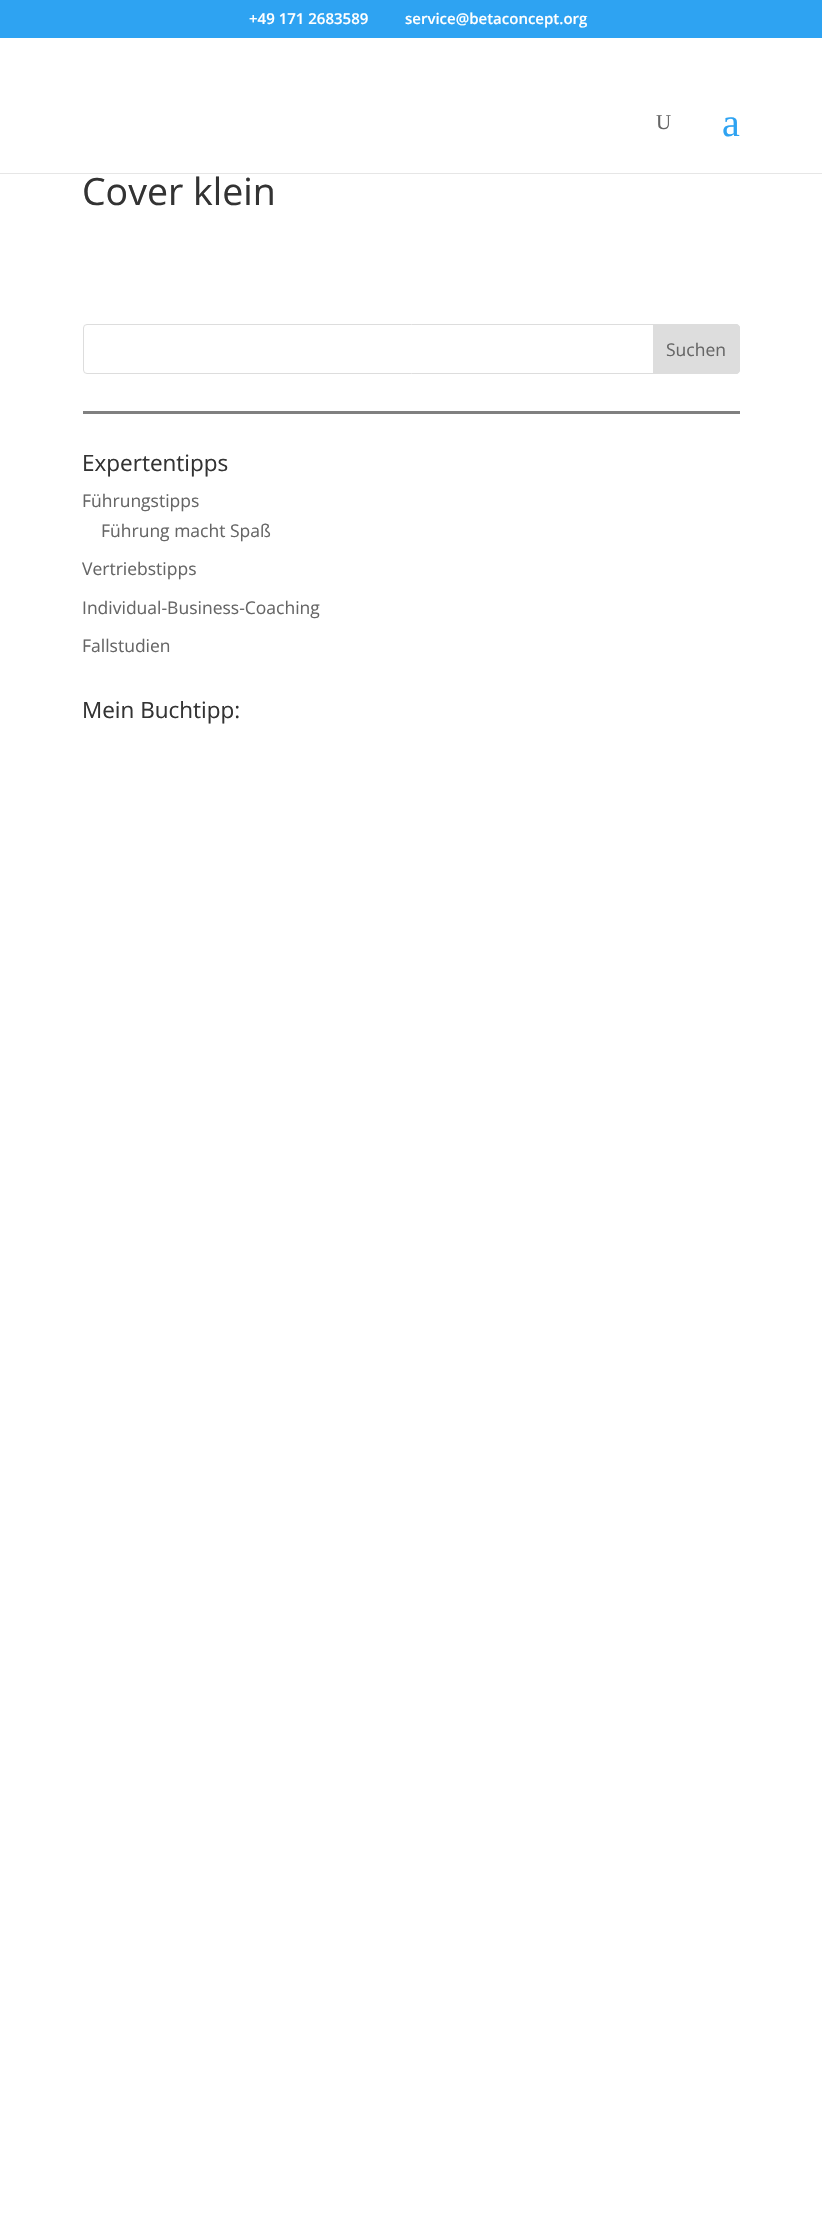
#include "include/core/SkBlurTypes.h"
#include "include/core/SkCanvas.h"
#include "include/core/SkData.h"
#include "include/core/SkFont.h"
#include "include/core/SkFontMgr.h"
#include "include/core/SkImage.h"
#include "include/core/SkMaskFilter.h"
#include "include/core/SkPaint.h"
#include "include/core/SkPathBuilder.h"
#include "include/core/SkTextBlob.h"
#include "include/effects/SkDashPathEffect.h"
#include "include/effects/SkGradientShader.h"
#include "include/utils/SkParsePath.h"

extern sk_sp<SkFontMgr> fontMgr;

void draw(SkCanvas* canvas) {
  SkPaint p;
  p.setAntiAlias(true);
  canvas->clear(SK_ColorWHITE);
  p.setColor(SkColorSetRGB(46, 163, 242));
  canvas->drawRect(SkRect::MakeLTRB(0, 0, 822, 38), p);
  p.setColor(SkColorSetRGB(230, 230, 230));
  canvas->drawPath(SkPathBuilder().moveTo(0, 172).lineTo(0, 174).lineTo(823, 174).lineTo(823, 74).lineTo(822, 74).lineTo(822, 172).close().detach(), p);
  p.setColor(SK_ColorWHITE);
  canvas->drawRect(SkRect::MakeLTRB(0, 172, 822, 173), p);
  p.setStyle(SkPaint::kStroke_Style);
  p.setStrokeWidth(1);
  p.setColor(SkColorSetRGB(221, 221, 221));
  canvas->drawRoundRect(SkRect::MakeLTRB(83.5f, 324.5f, 739.5f, 373.5f), 3.5f, 3.5f, p);
  p.setStyle(SkPaint::kFill_Style);
  canvas->drawPath(SkPathBuilder().moveTo(653.5f, 324.5f).lineTo(736, 324.5f).cubicTo(738, 324.5f, 739.5f, 326, 739.5f, 328).lineTo(739.5f, 370).cubicTo(739.5f, 372, 738, 373.5f, 736, 373.5f).lineTo(653.5f, 373.5f).close().detach(), p);
  p.setStyle(SkPaint::kStroke_Style);
  canvas->drawPath(SkPathBuilder().moveTo(653.5f, 324.5f).lineTo(736, 324.5f).cubicTo(738, 324.5f, 739.5f, 326, 739.5f, 328).lineTo(739.5f, 370).cubicTo(739.5f, 372, 738, 373.5f, 736, 373.5f).lineTo(653.5f, 373.5f).close().detach(), p);
  p.setStyle(SkPaint::kFill_Style);
  p.setColor(SkColorSetRGB(128, 128, 128));
  canvas->drawRect(SkRect::MakeLTRB(83, 411, 740, 414), p);
  SkFont font1(fontMgr->matchFamilyStyle("Open Sans", SkFontStyle(600, SkFontStyle::kNormal_Width, SkFontStyle::kUpright_Slant)), 15);
  font1.setSubpixel(true);
  p.setColor(SK_ColorWHITE);
  canvas->drawString("+49 171 2683589", 249, 24, font1, p);
  canvas->drawString("service@betaconcept.org", 405, 24, font1, p);
  SkFont font2(fontMgr->matchFamilyStyle("Liberation Serif", SkFontStyle::Normal()), 21);
  font2.setSubpixel(true);
  p.setColor(SkColorSetRGB(102, 102, 102));
  canvas->drawString("U", 656, 129, font2, p);
  SkFont font3(fontMgr->matchFamilyStyle("Liberation Serif", SkFontStyle::Normal()), 40);
  font3.setSubpixel(true);
  p.setColor(SkColorSetRGB(46, 163, 242));
  canvas->drawString("a", 722, 136, font3, p);
  SkFont font4(fontMgr->matchFamilyStyle("Open Sans", SkFontStyle::Normal()), 37.5f);
  font4.setSubpixel(true);
  p.setColor(SkColorSetRGB(51, 51, 51));
  canvas->drawString("Cover klein", 82, 205, font4, p);
  SkFont font5(fontMgr->matchFamilyStyle("Open Sans", SkFontStyle::Normal()), 17.5f);
  font5.setSubpixel(true);
  p.setColor(SkColorSetRGB(102, 102, 102));
  canvas->drawString("Suchen", 666, 356, font5, p);
  SkFont font6(fontMgr->matchFamilyStyle("Open Sans", SkFontStyle::Normal()), 22.5f);
  font6.setSubpixel(true);
  p.setColor(SkColorSetRGB(51, 51, 51));
  canvas->drawString("Expertentipps", 82, 471, font6, p);
  p.setColor(SkColorSetRGB(102, 102, 102));
  canvas->drawString("Führungstipps", 82, 507, font5, p);
  canvas->drawString("Führung macht Spaß", 101, 537, font5, p);
  canvas->drawString("Vertriebstipps", 82, 575, font5, p);
  canvas->drawString("Individual-Business-Coaching", 82, 614, font5, p);
  canvas->drawString("Fallstudien", 82, 652, font5, p);
  p.setColor(SkColorSetRGB(51, 51, 51));
  canvas->drawString("Mein Buchtipp:", 82, 718, font6, p);
}
